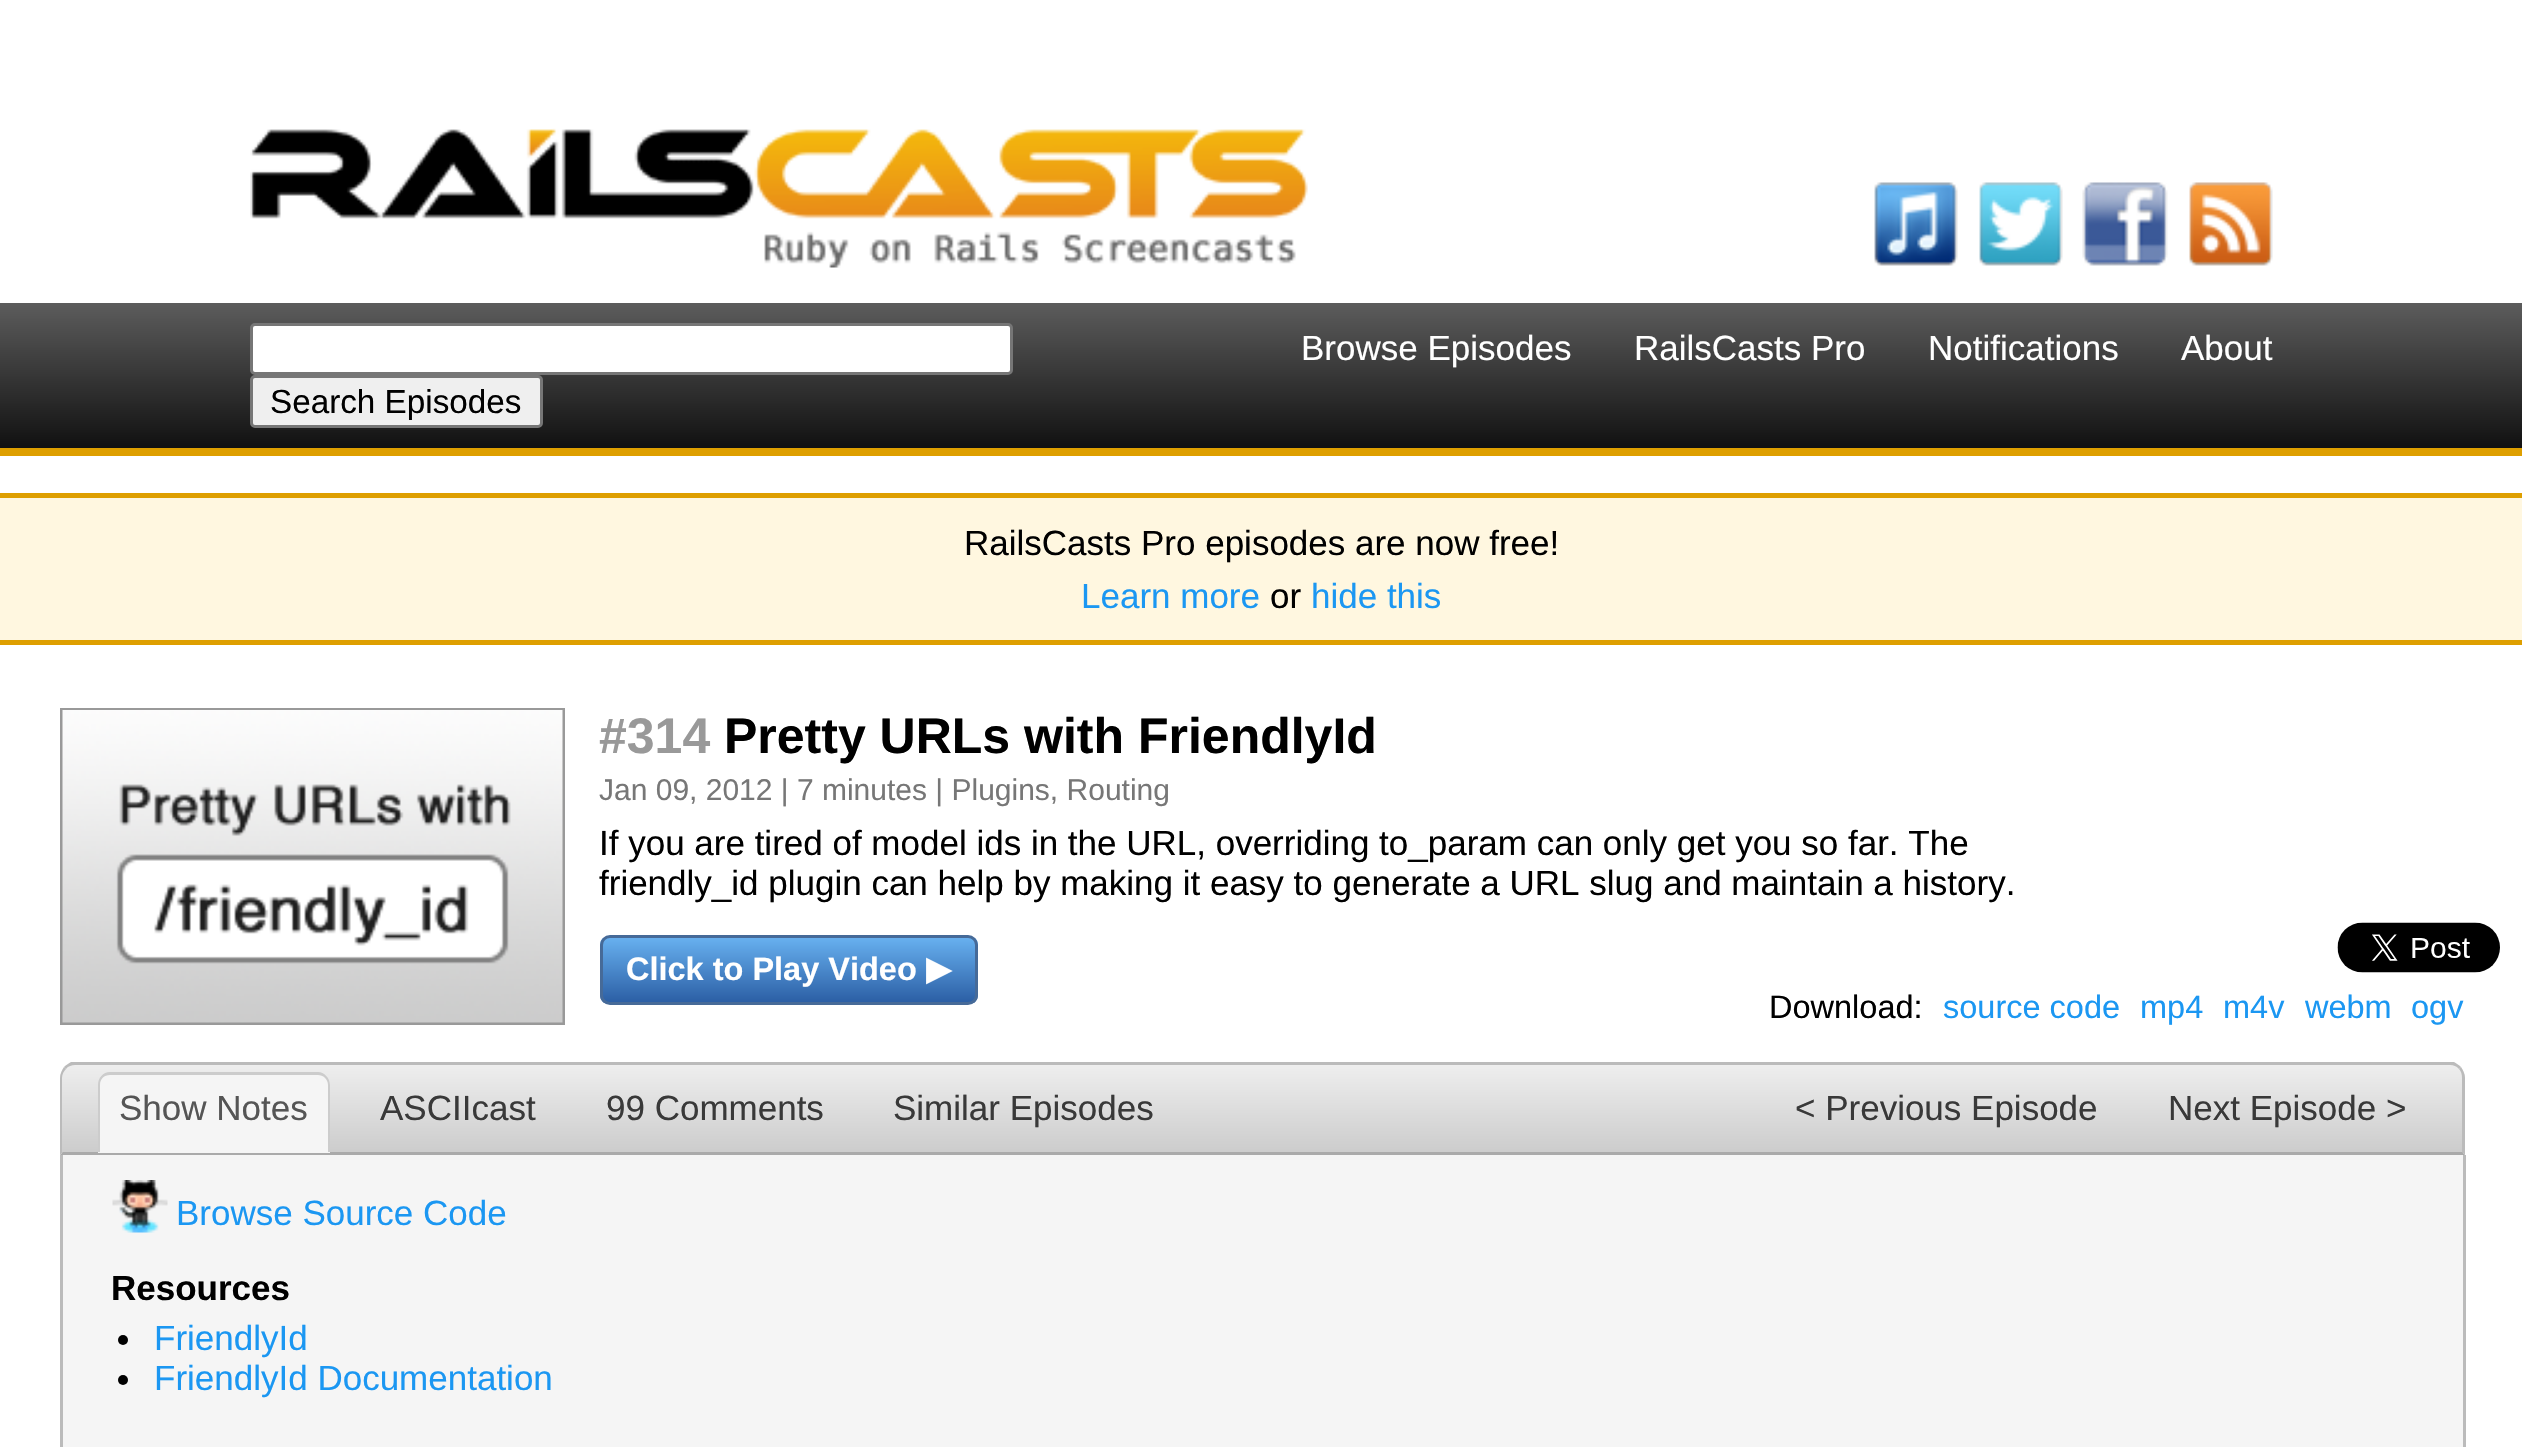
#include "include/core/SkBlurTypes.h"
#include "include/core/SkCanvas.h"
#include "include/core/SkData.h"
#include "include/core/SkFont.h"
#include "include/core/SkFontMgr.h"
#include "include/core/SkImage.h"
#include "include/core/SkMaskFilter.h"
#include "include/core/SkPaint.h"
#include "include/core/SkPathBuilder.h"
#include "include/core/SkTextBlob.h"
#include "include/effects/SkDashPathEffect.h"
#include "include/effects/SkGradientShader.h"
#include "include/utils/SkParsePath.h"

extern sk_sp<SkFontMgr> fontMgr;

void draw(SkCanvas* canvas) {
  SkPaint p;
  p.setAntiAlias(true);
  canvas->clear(SK_ColorWHITE);
  canvas->drawImageRect(SkImages::DeferredFromEncodedData(SkData::MakeFromFileName("images/1.png")), SkRect::MakeLTRB(250, 128, 1308, 268), SkSamplingOptions());
  canvas->drawImageRect(SkImages::DeferredFromEncodedData(SkData::MakeFromFileName("images/2.png")), SkRect::MakeLTRB(1874, 182, 1958, 266), SkSamplingOptions());
  canvas->drawImageRect(SkImages::DeferredFromEncodedData(SkData::MakeFromFileName("images/3.png")), SkRect::MakeLTRB(1979, 182, 2063, 266), SkSamplingOptions());
  canvas->drawImageRect(SkImages::DeferredFromEncodedData(SkData::MakeFromFileName("images/4.png")), SkRect::MakeLTRB(2082, 182, 2168, 266), SkSamplingOptions());
  canvas->drawImageRect(SkImages::DeferredFromEncodedData(SkData::MakeFromFileName("images/5.png")), SkRect::MakeLTRB(2189, 182, 2273, 266), SkSamplingOptions());
  {
    const SkColor colors[] = {SkColorSetRGB(92, 92, 92), SkColorSetRGB(17, 17, 17)};
    const float stops[] = {0, 1};
    const SkPoint ends[] = {{0, 303}, {0, 448}};
    p.setShader(SkGradientShader::MakeLinear(ends, colors, stops, 2, SkTileMode::kClamp));
    p.setAlpha(255);
  }
  canvas->drawRect(SkRect::MakeLTRB(0, 303, 2522, 448), p);
  p.setShader(nullptr);
  p.setColor(SkColorSetRGB(222, 159, 0));
  canvas->drawRect(SkRect::MakeLTRB(0, 448, 2522, 456), p);
  p.setColor(SK_ColorWHITE);
  canvas->drawRoundRect(SkRect::MakeLTRB(251.5f, 324.5f, 1011.5f, 373.5f), 3.5f, 3.5f, p);
  p.setStyle(SkPaint::kStroke_Style);
  p.setStrokeWidth(3);
  p.setColor(SkColorSetRGB(118, 118, 118));
  canvas->drawRoundRect(SkRect::MakeLTRB(251.5f, 324.5f, 1011.5f, 373.5f), 3.5f, 3.5f, p);
  p.setStyle(SkPaint::kFill_Style);
  p.setColor(SkColorSetRGB(239, 239, 239));
  canvas->drawRoundRect(SkRect::MakeLTRB(251.5f, 376.5f, 541.5f, 426.5f), 3.5f, 3.5f, p);
  p.setStyle(SkPaint::kStroke_Style);
  p.setColor(SkColorSetRGB(118, 118, 118));
  canvas->drawRoundRect(SkRect::MakeLTRB(251.5f, 376.5f, 541.5f, 426.5f), 3.5f, 3.5f, p);
  p.setStyle(SkPaint::kFill_Style);
  p.setColor(SkColorSetRGB(255, 247, 224));
  canvas->drawRect(SkRect::MakeLTRB(0, 498, 2522, 640), p);
  p.setColor(SkColorSetRGB(222, 159, 0));
  canvas->drawRect(SkRect::MakeLTRB(0, 493, 2522, 498), p);
  canvas->drawRect(SkRect::MakeLTRB(0, 640, 2522, 645), p);
  p.setStyle(SkPaint::kStroke_Style);
  p.setColor(SkColorSetRGB(153, 153, 153));
  canvas->drawRect(SkRect::MakeLTRB(61.5f, 709.5f, 563.5f, 1023.5f), p);
  canvas->drawImageRect(SkImages::DeferredFromEncodedData(SkData::MakeFromFileName("images/6.png")), SkRect::MakeLTRB(62, 710, 563, 1023), SkSamplingOptions());
  canvas->save();
  canvas->clipPath(SkPathBuilder().moveTo(610, 935).lineTo(968, 935).cubicTo(973.5f, 935, 978, 939.5f, 978, 945).lineTo(978, 995).cubicTo(978, 1000.5f, 973.5f, 1005, 968, 1005).lineTo(610, 1005).cubicTo(604.5f, 1005, 600, 1000.5f, 600, 995).lineTo(600, 945).cubicTo(600, 939.5f, 604.5f, 935, 610, 935).close().detach(), true);
  p.setStyle(SkPaint::kFill_Style);
  {
    const SkColor colors[] = {SkColorSetRGB(103, 176, 239), SkColorSetRGB(43, 94, 164)};
    const float stops[] = {0, 1};
    const SkPoint ends[] = {{603, 938}, {603, 1003}};
    p.setShader(SkGradientShader::MakeLinear(ends, colors, stops, 2, SkTileMode::kClamp));
    p.setAlpha(255);
  }
  canvas->drawRect(SkRect::MakeLTRB(600, 938, 978, 1003), p);
  canvas->restore();
  p.setStyle(SkPaint::kStroke_Style);
  p.setShader(nullptr);
  p.setColor(SkColorSetRGB(70, 106, 152));
  canvas->drawRoundRect(SkRect::MakeLTRB(601.5f, 936.5f, 976.5f, 1003.5f), 8.5f, 8.5f, p);
  canvas->drawImageRect(SkImages::DeferredFromEncodedData(SkData::MakeFromFileName("images/7.png")), SkRect::MakeLTRB(2337, 922, 2500, 973), SkSamplingOptions());
  canvas->save();
  canvas->clipPath(SkPathBuilder().moveTo(75, 1063).lineTo(2450, 1063).cubicTo(2458.5f, 1063, 2465, 1069.5f, 2465, 1078).lineTo(2465, 1155).lineTo(60, 1155).lineTo(60, 1078).cubicTo(60, 1069.5f, 66.5f, 1063, 75, 1063).close().detach(), true);
  p.setStyle(SkPaint::kFill_Style);
  {
    const SkColor colors[] = {SkColorSetRGB(238, 238, 238), SkColorSetRGB(204, 204, 204)};
    const float stops[] = {0, 1};
    const SkPoint ends[] = {{63, 1065}, {63, 1153}};
    p.setShader(SkGradientShader::MakeLinear(ends, colors, stops, 2, SkTileMode::kClamp));
    p.setAlpha(255);
  }
  canvas->drawRect(SkRect::MakeLTRB(60, 1065, 2465, 1153), p);
  canvas->restore();
  p.setShader(nullptr);
  p.setColor(SkColorSetRGB(187, 187, 187));
  canvas->drawPath(SkPathBuilder().moveTo(75, 1065).cubicTo(72, 1065, 68, 1066, 66, 1069).lineTo(64, 1067).cubicTo(66, 1065, 69, 1063, 71, 1062).lineTo(2454, 1062).cubicTo(2456, 1063, 2459, 1065, 2461, 1067).lineTo(2459, 1069).cubicTo(2456, 1066, 2454, 1065, 2450, 1065).close().detach(), p);
  canvas->drawPath(SkPathBuilder().moveTo(2465, 1155).lineTo(2465, 1078).cubicTo(2465, 1074, 2463, 1070, 2461, 1067).lineTo(2459, 1069).cubicTo(2461, 1071, 2462, 1074, 2462, 1078).lineTo(2462, 1152).close().detach(), p);
  p.setColor(SkColorSetRGB(170, 170, 170));
  canvas->drawPath(SkPathBuilder().moveTo(2465, 1155).lineTo(2462, 1152).lineTo(63, 1152).lineTo(60, 1155).close().detach(), p);
  p.setColor(SkColorSetRGB(187, 187, 187));
  canvas->drawPath(SkPathBuilder().moveTo(60, 1155).lineTo(63, 1152).lineTo(62, 1152).lineTo(62, 1078).cubicTo(62, 1074, 64, 1071, 66, 1069).lineTo(64, 1067).cubicTo(62, 1070, 60, 1074, 60, 1078).close().detach(), p);
  p.setColor(SkColorSetRGB(245, 245, 245));
  canvas->drawPath(SkPathBuilder().moveTo(111, 1073).lineTo(317, 1073).cubicTo(324, 1073, 330, 1079, 330, 1086).lineTo(330, 1153).lineTo(98, 1153).lineTo(98, 1086).cubicTo(98, 1079, 104, 1073, 111, 1073).close().detach(), p);
  p.setColor(SkColorSetRGB(204, 204, 204));
  canvas->drawPath(SkPathBuilder(SkPathFillType::kEvenOdd).moveTo(110, 1072).lineTo(318, 1072).cubicTo(324, 1072, 330, 1078, 330, 1085).lineTo(330, 1152).lineTo(98, 1152).lineTo(98, 1085).cubicTo(98, 1078, 103, 1072, 110, 1072).close().moveTo(110, 1075).lineTo(318, 1075).cubicTo(323, 1075, 328, 1079, 328, 1085).lineTo(328, 1152).lineTo(100, 1152).lineTo(100, 1085).cubicTo(100, 1079, 104, 1075, 110, 1075).close().detach(), p);
  p.setColor(SkColorSetRGB(245, 245, 245));
  canvas->drawRect(SkRect::MakeLTRB(63, 1155, 2463, 1447), p);
  p.setColor(SkColorSetRGB(187, 187, 187));
  canvas->drawRect(SkRect::MakeLTRB(2463, 1155, 2466, 1447), p);
  canvas->drawRect(SkRect::MakeLTRB(60, 1155, 63, 1447), p);
  canvas->drawImageRect(SkImages::DeferredFromEncodedData(SkData::MakeFromFileName("images/8.png")), SkRect::MakeLTRB(112, 1180, 168, 1233), SkSamplingOptions());
  p.setColor(SK_ColorBLACK);
  canvas->drawCircle(123, 1340, 5, p);
  canvas->drawCircle(123, 1380, 5, p);
  SkFont font1(fontMgr->matchFamilyStyle("Liberation Sans", SkFontStyle::Normal()), 35);
  font1.setSubpixel(true);
  p.setColor(SK_ColorWHITE);
  canvas->drawString("Browse Episodes", 1301, 360, font1, p);
  canvas->drawString("RailsCasts Pro", 1634, 360, font1, p);
  canvas->drawString("Notifications", 1928, 360, font1, p);
  canvas->drawString("About", 2181, 360, font1, p);
  SkFont font2(fontMgr->matchFamilyStyle("Liberation Sans", SkFontStyle::Normal()), 33.25f);
  font2.setSubpixel(true);
  p.setColor(SK_ColorBLACK);
  canvas->drawString("Search Episodes", 270, 413, font2, p);
  canvas->drawString("RailsCasts Pro episodes are now free!", 964, 555, font1, p);
  p.setColor(SkColorSetRGB(27, 151, 242));
  canvas->drawString("Learn more", 1081, 608, font1, p);
  p.setColor(SK_ColorBLACK);
  canvas->drawString("or", 1270, 608, font1, p);
  p.setColor(SkColorSetRGB(27, 151, 242));
  canvas->drawString("hide this", 1311, 608, font1, p);
  SkFont font3(fontMgr->matchFamilyStyle("Liberation Sans", SkFontStyle::Bold()), 50);
  font3.setSubpixel(true);
  p.setColor(SkColorSetRGB(153, 153, 153));
  canvas->drawString("#314", 599, 753, font3, p);
  p.setColor(SK_ColorBLACK);
  canvas->drawString("Pretty URLs with FriendlyId", 724, 753, font3, p);
  SkFont font4(fontMgr->matchFamilyStyle("Liberation Sans", SkFontStyle::Normal()), 30);
  font4.setSubpixel(true);
  p.setColor(SkColorSetRGB(119, 119, 119));
  canvas->drawString("Jan 09, 2012 | 7 minutes | Plugins, Routing", 599, 800, font4, p);
  p.setColor(SK_ColorBLACK);
  canvas->drawString("If you are tired of model ids in the URL, overriding to_param can only get you so far. The", 599, 855, font1, p);
  canvas->drawString("friendly_id plugin can help by making it easy to generate a URL slug and maintain a history.", 599, 895, font1, p);
  SkFont font5(fontMgr->matchFamilyStyle("Liberation Sans", SkFontStyle::Bold()), 32.5f);
  font5.setSubpixel(true);
  p.setColor(SK_ColorWHITE);
  canvas->drawString("Click to Play Video", 626, 980, font5, p);
  SkFont font6(fontMgr->matchFamilyStyle("DejaVu Sans", SkFontStyle::Bold()), 32.5f);
  font6.setSubpixel(true);
  canvas->drawString("▶", 926, 980, font6, p);
  SkFont font7(fontMgr->matchFamilyStyle("Liberation Sans", SkFontStyle::Normal()), 32.5f);
  font7.setSubpixel(true);
  p.setColor(SK_ColorBLACK);
  canvas->drawString("Download:", 1769, 1018, font7, p);
  p.setColor(SkColorSetRGB(27, 151, 242));
  canvas->drawString("source code", 1943, 1018, font7, p);
  canvas->drawString("mp4", 2140, 1018, font7, p);
  canvas->drawString("m4v", 2223, 1018, font7, p);
  canvas->drawString("webm", 2305, 1018, font7, p);
  canvas->drawString("ogv", 2411, 1018, font7, p);
  p.setColor(SkColorSetRGB(85, 85, 85));
  canvas->drawString("Show Notes", 119, 1120, font1, p);
  p.setColor(SkColorSetRGB(57, 57, 57));
  canvas->drawString("ASCIIcast", 380, 1120, font1, p);
  canvas->drawString("99 Comments", 606, 1120, font1, p);
  canvas->drawString("Similar Episodes", 893, 1120, font1, p);
  canvas->drawString("< Previous Episode", 1795, 1120, font1, p);
  canvas->drawString("Next Episode >", 2168, 1120, font1, p);
  p.setColor(SkColorSetRGB(27, 151, 242));
  canvas->drawString("Browse Source Code", 176, 1225, font1, p);
  SkFont font8(fontMgr->matchFamilyStyle("Liberation Sans", SkFontStyle::Bold()), 35);
  font8.setSubpixel(true);
  p.setColor(SK_ColorBLACK);
  canvas->drawString("Resources", 111, 1300, font8, p);
  p.setColor(SkColorSetRGB(27, 151, 242));
  canvas->drawString("FriendlyId", 154, 1350, font1, p);
  canvas->drawString("FriendlyId Documentation", 154, 1390, font1, p);
}
